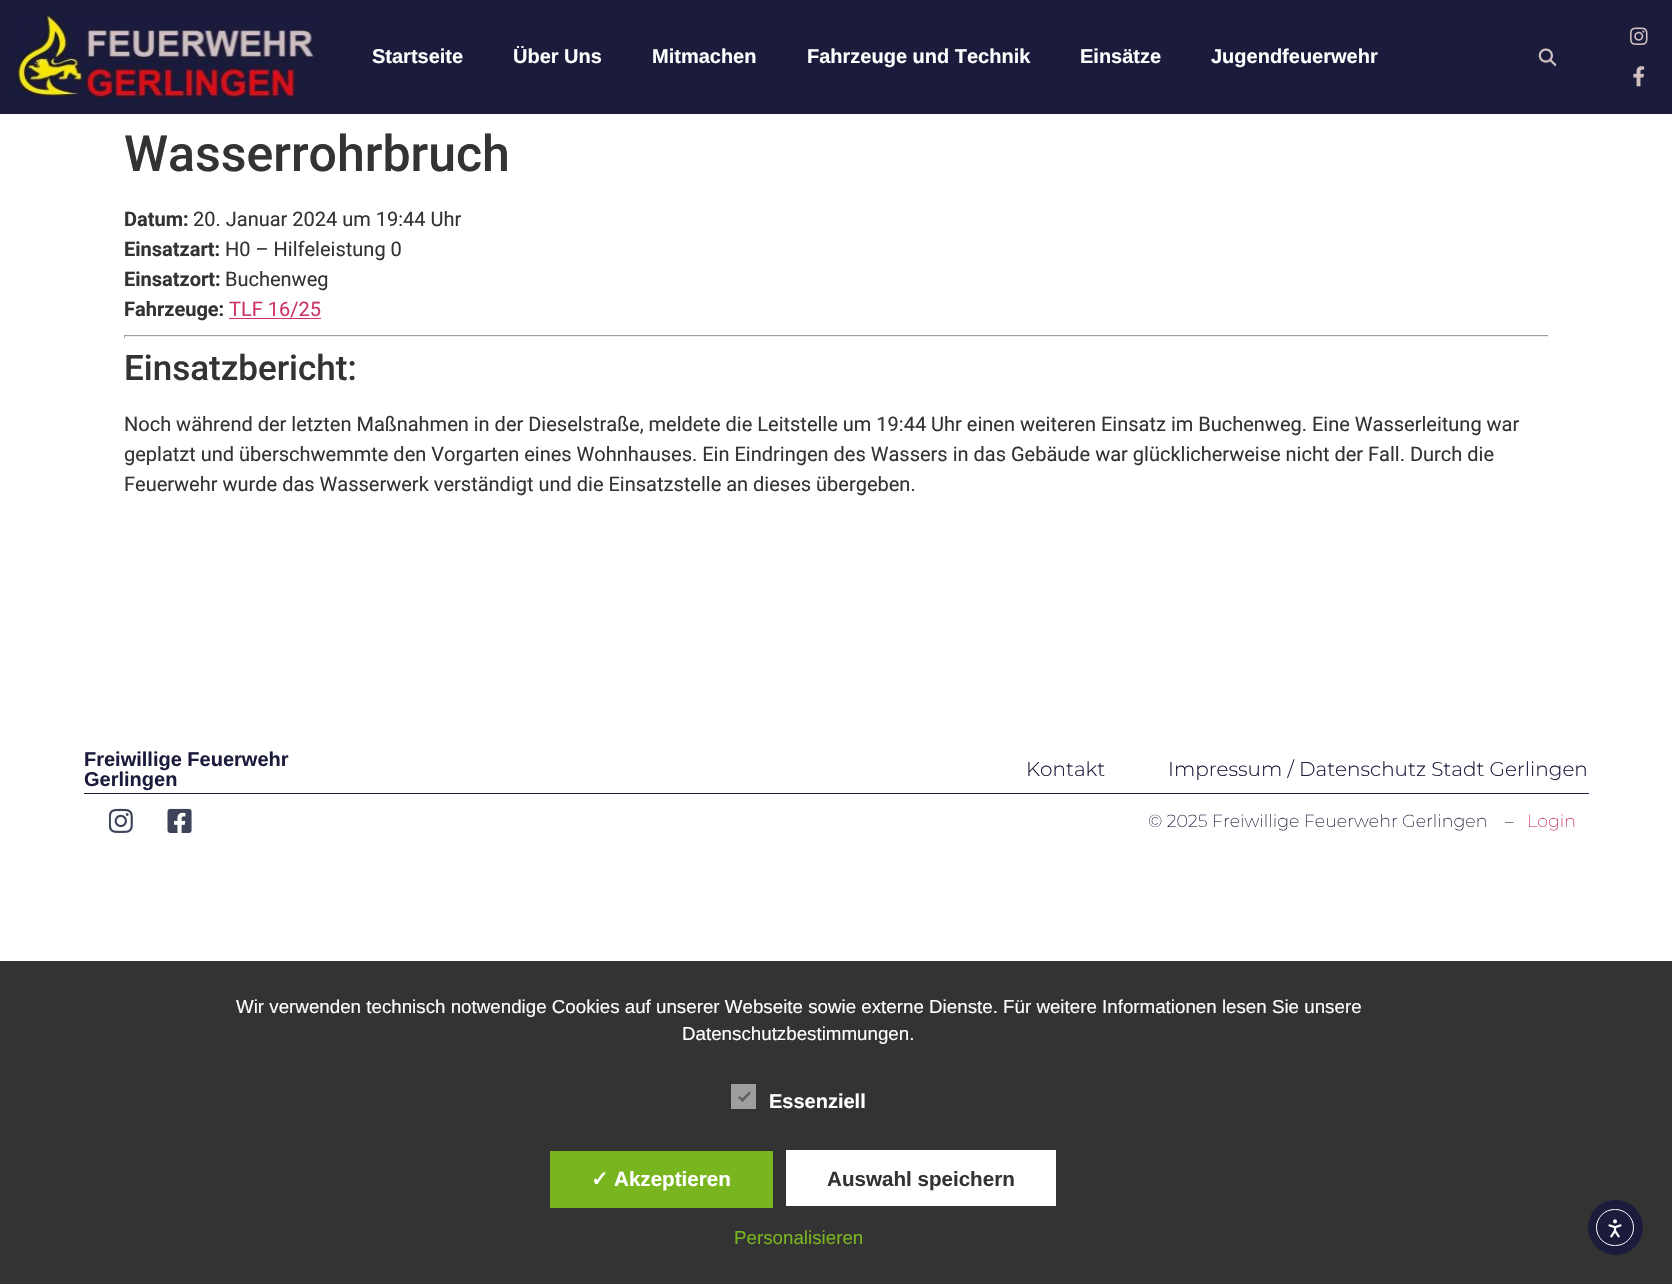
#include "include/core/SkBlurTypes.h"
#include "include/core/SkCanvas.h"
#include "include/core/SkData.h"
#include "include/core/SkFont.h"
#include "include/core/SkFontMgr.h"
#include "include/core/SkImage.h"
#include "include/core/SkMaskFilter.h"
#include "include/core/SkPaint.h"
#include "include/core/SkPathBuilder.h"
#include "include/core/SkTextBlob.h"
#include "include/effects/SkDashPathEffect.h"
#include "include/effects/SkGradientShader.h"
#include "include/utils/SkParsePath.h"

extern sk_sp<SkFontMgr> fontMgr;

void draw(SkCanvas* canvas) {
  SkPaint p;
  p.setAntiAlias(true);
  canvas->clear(SK_ColorWHITE);
  p.setColor(SkColorSetRGB(27, 27, 60));
  canvas->drawRect(SkRect::MakeLTRB(0, 0, 1672, 114), p);
  canvas->drawImageRect(SkImages::DeferredFromEncodedData(SkData::MakeFromFileName("images/1.png")), SkRect::MakeLTRB(12, 12, 319, 102), SkSamplingOptions());
  canvas->drawImageRect(SkImages::DeferredFromEncodedData(SkData::MakeFromFileName("images/2.png")), SkRect::MakeLTRB(1538, 48, 1557, 66), SkSamplingOptions());
  canvas->drawImageRect(SkImages::DeferredFromEncodedData(SkData::MakeFromFileName("images/3.png")), SkRect::MakeLTRB(1630, 27, 1648, 45), SkSamplingOptions());
  canvas->drawImageRect(SkImages::DeferredFromEncodedData(SkData::MakeFromFileName("images/4.png")), SkRect::MakeLTRB(1633, 66, 1645, 87), SkSamplingOptions());
  p.setColor(SkColorSetRGB(204, 51, 102));
  canvas->drawRect(SkRect::MakeLTRB(229, 318, 321, 319), p);
  p.setColor(SkColorSetRGB(159, 159, 159));
  canvas->drawRect(SkRect::MakeLTRB(124, 335, 1549, 336), p);
  p.setColor(SkColorSetRGB(238, 238, 238));
  canvas->drawRect(SkRect::MakeLTRB(1548, 335, 1549, 338), p);
  canvas->drawRect(SkRect::MakeLTRB(124, 336, 1549, 337), p);
  p.setColor(SkColorSetRGB(159, 159, 159));
  canvas->drawRect(SkRect::MakeLTRB(124, 335, 125, 338), p);
  p.setColor(SkColorSetRGB(27, 27, 60));
  canvas->drawRect(SkRect::MakeLTRB(84, 793, 1589, 794), p);
  canvas->drawImageRect(SkImages::DeferredFromEncodedData(SkData::MakeFromFileName("images/5.png")), SkRect::MakeLTRB(109, 808, 133, 833), SkSamplingOptions());
  canvas->drawImageRect(SkImages::DeferredFromEncodedData(SkData::MakeFromFileName("images/6.png")), SkRect::MakeLTRB(167, 808, 192, 833), SkSamplingOptions());
  p.setColor(SkColorSetRGB(51, 51, 51));
  canvas->drawRect(SkRect::MakeLTRB(0, 961, 1672, 1284), p);
  p.setColor(SkColorSetRGB(158, 158, 158));
  canvas->drawRect(SkRect::MakeLTRB(731, 1084, 756, 1109), p);
  p.setColor(SkColorSetRGB(94, 94, 94));
  canvas->drawPath(SkPathBuilder().moveTo(749.5f, 1091.5f).lineTo(751, 1093).lineTo(742.5f, 1102).lineTo(740.5f, 1100).close().detach(), p);
  canvas->drawPath(SkPathBuilder().moveTo(739.5f, 1096).lineTo(744, 1100).lineTo(742.5f, 1102).lineTo(738, 1097.5f).close().detach(), p);
  p.setColor(SkColorSetRGB(121, 181, 31));
  canvas->drawRect(SkRect::MakeLTRB(550, 1151, 773, 1208), p);
  p.setColor(SK_ColorWHITE);
  canvas->drawRect(SkRect::MakeLTRB(786, 1150, 1056, 1206), p);
  p.setColor(SkColorSetRGB(27, 27, 59));
  canvas->drawCircle(1615.5f, 1227.5f, 27.5f, p);
  p.setStyle(SkPaint::kStroke_Style);
  p.setStrokeWidth(1);
  p.setColor(SK_ColorWHITE);
  canvas->drawRoundRect(SkRect::MakeLTRB(1596.5f, 1209.5f, 1633.5f, 1245.5f), 18, 18, p);
  canvas->drawImageRect(SkImages::DeferredFromEncodedData(SkData::MakeFromFileName("images/7.png")), SkRect::MakeLTRB(1608, 1219, 1622, 1238), SkSamplingOptions());
  SkFont font1(fontMgr->matchFamilyStyle("Liberation Sans", SkFontStyle::Bold()), 20);
  font1.setSubpixel(true);
  p.setStyle(SkPaint::kFill_Style);
  canvas->drawString("Startseite", 372, 63, font1, p);
  canvas->drawString("Über Uns", 513, 63, font1, p);
  canvas->drawString("Mitmachen", 652, 63, font1, p);
  canvas->drawString("Fahrzeuge und Technik", 807, 63, font1, p);
  canvas->drawString("Einsätze", 1080, 63, font1, p);
  canvas->drawString("Jugendfeuerwehr", 1211, 63, font1, p);
  SkFont font2(fontMgr->matchFamilyStyle("Roboto", SkFontStyle(500, SkFontStyle::kNormal_Width, SkFontStyle::kUpright_Slant)), 50);
  font2.setSubpixel(true);
  p.setColor(SkColorSetRGB(51, 51, 51));
  canvas->drawString("Wasserrohrbruch", 124, 171, font2, p);
  SkFont font3(fontMgr->matchFamilyStyle("Roboto", SkFontStyle::Bold()), 20);
  font3.setSubpixel(true);
  canvas->drawString("Datum:", 124, 226, font3, p);
  SkFont font4(fontMgr->matchFamilyStyle("Roboto", SkFontStyle::Normal()), 20);
  font4.setSubpixel(true);
  canvas->drawString("20. Januar 2024 um 19:44 Uhr", 193, 226, font4, p);
  canvas->drawString("Einsatzart:", 124, 256, font3, p);
  canvas->drawString("H0 – Hilfeleistung 0", 225, 256, font4, p);
  canvas->drawString("Einsatzort:", 124, 286, font3, p);
  canvas->drawString("Buchenweg", 225, 286, font4, p);
  canvas->drawString("Fahrzeuge:", 124, 316, font3, p);
  p.setColor(SkColorSetRGB(204, 51, 102));
  canvas->drawString("TLF 16/25", 229, 316, font4, p);
  SkFont font5(fontMgr->matchFamilyStyle("Roboto", SkFontStyle(500, SkFontStyle::kNormal_Width, SkFontStyle::kUpright_Slant)), 35);
  font5.setSubpixel(true);
  p.setColor(SkColorSetRGB(51, 51, 51));
  canvas->drawString("Einsatzbericht:", 124, 380, font5, p);
  canvas->drawString("Noch während der letzten Maßnahmen in der Dieselstraße, meldete die Leitstelle um 19:44 Uhr einen weiteren Einsatz im Buchenweg. Eine Wasserleitung war", 124, 431, font4, p);
  canvas->drawString("geplatzt und überschwemmte den Vorgarten eines Wohnhauses. Ein Eindringen des Wassers in das Gebäude war glücklicherweise nicht der Fall. Durch die", 124, 461, font4, p);
  canvas->drawString("Feuerwehr wurde das Wasserwerk verständigt und die Einsatzstelle an dieses übergeben.", 124, 491, font4, p);
  p.setColor(SkColorSetRGB(27, 27, 60));
  canvas->drawString("Freiwillige Feuerwehr", 84, 766, font1, p);
  canvas->drawString("Gerlingen", 84, 786, font1, p);
  SkFont font6(fontMgr->matchFamilyStyle("Montserrat", SkFontStyle(300, SkFontStyle::kNormal_Width, SkFontStyle::kUpright_Slant)), 20);
  font6.setSubpixel(true);
  canvas->drawString("Kontakt", 1026, 776, font6, p);
  canvas->drawString("Impressum / Datenschutz Stadt Gerlingen", 1168, 776, font6, p);
  SkFont font7(fontMgr->matchFamilyStyle("Montserrat", SkFontStyle(200, SkFontStyle::kNormal_Width, SkFontStyle::kUpright_Slant)), 17.5f);
  font7.setSubpixel(true);
  canvas->drawString("© 2025 Freiwillige Feuerwehr Gerlingen    –", 1148, 827, font7, p);
  p.setColor(SkColorSetRGB(204, 51, 102));
  canvas->drawString("Login", 1527, 827, font7, p);
  SkFont font8(fontMgr->matchFamilyStyle("Liberation Sans", SkFontStyle::Normal()), 18.75f);
  font8.setSubpixel(true);
  p.setColor(SK_ColorWHITE);
  canvas->drawString("Wir verwenden technisch notwendige Cookies auf unserer Webseite sowie externe Dienste. Für weitere Informationen lesen Sie unsere", 236, 1013, font8, p);
  canvas->drawString("Datenschutzbestimmungen.", 682, 1040, font8, p);
  canvas->drawString("Essenziell", 769, 1108, font1, p);
  SkFont font9(fontMgr->matchFamilyStyle("DejaVu Sans", SkFontStyle::Bold()), 20.6f);
  font9.setSubpixel(true);
  canvas->drawString("✓", 591, 1186, font9, p);
  SkFont font10(fontMgr->matchFamilyStyle("Liberation Sans", SkFontStyle::Bold()), 20.6f);
  font10.setSubpixel(true);
  canvas->drawString("Akzeptieren", 614, 1186, font10, p);
  p.setColor(SkColorSetRGB(51, 51, 51));
  canvas->drawString("Auswahl speichern", 827, 1186, font10, p);
  p.setColor(SkColorSetRGB(121, 181, 31));
  canvas->drawString("Personalisieren", 734, 1244, font8, p);
}
